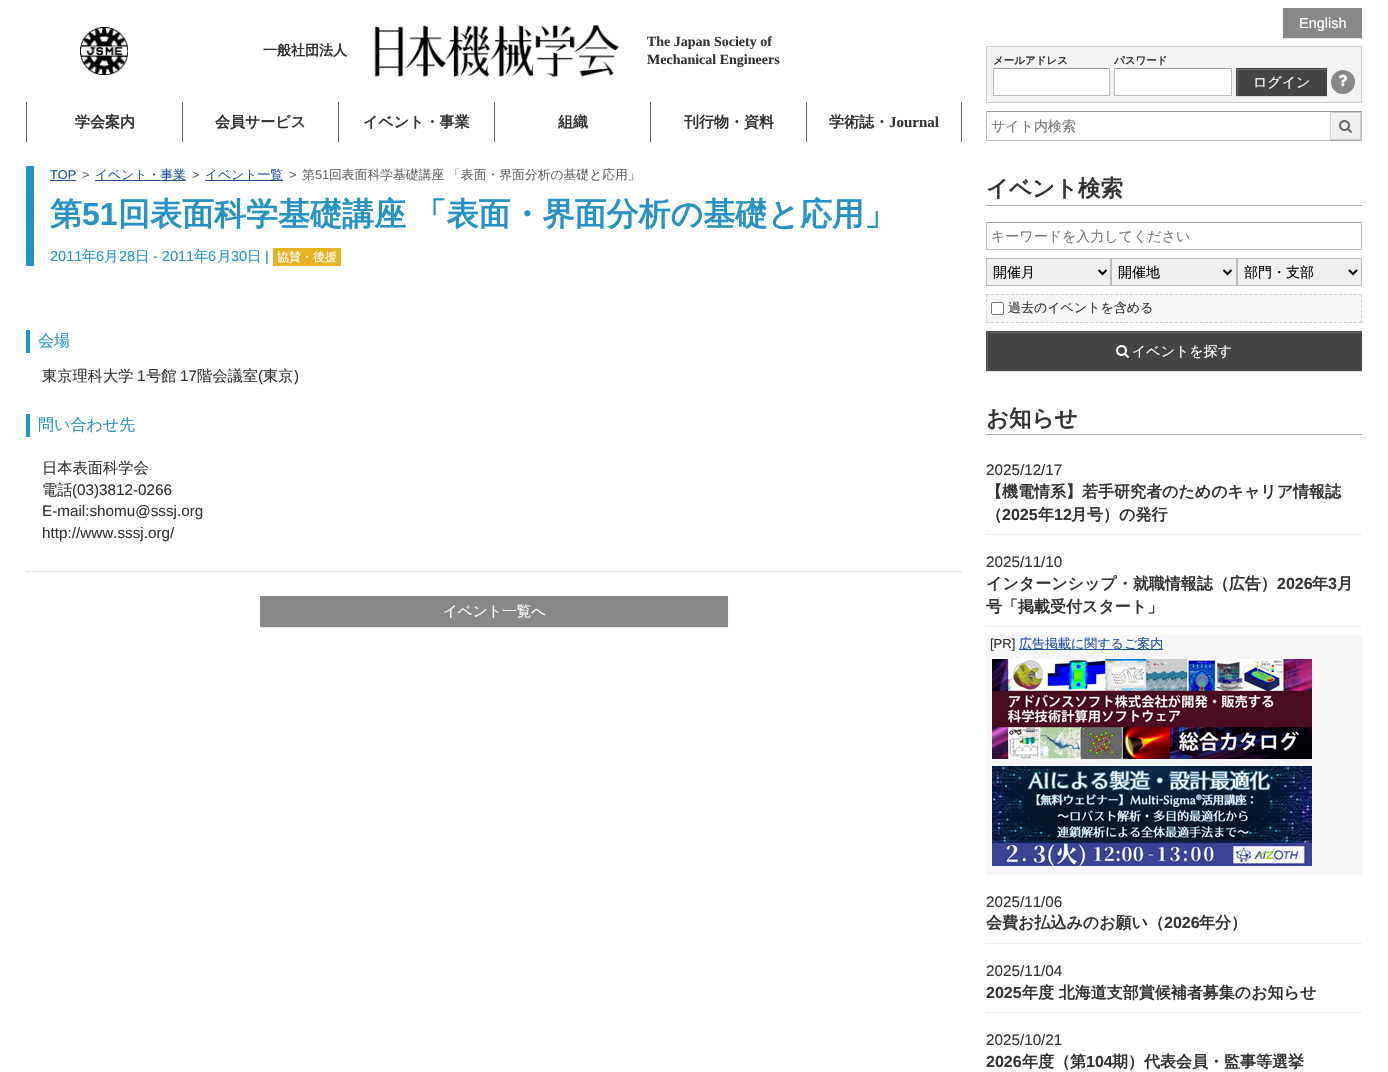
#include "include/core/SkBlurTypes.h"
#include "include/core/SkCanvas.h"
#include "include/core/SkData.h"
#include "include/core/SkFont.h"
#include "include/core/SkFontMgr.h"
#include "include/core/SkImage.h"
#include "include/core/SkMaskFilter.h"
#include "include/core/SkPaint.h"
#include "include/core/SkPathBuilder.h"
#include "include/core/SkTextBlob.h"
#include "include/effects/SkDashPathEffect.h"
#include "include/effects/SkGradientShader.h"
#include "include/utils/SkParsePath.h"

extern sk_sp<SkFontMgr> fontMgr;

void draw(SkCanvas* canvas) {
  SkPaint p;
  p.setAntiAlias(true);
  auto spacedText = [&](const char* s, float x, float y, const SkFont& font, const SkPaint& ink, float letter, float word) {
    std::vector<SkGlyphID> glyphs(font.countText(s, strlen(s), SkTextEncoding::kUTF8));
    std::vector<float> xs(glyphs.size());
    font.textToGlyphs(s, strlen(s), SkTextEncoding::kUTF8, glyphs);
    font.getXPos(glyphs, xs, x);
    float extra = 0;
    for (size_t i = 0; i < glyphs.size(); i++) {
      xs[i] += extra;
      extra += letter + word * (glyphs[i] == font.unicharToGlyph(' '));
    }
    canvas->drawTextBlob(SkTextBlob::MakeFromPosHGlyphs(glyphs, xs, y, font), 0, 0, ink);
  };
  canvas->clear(SK_ColorWHITE);
  canvas->drawImageRect(SkImages::DeferredFromEncodedData(SkData::MakeFromFileName("images/1.png")), SkRect::MakeLTRB(80, 27, 128, 75), SkSamplingOptions());
  canvas->drawImageRect(SkImages::DeferredFromEncodedData(SkData::MakeFromFileName("images/2.png")), SkRect::MakeLTRB(374, 25, 619, 77), SkSamplingOptions());
  p.setColor(SkColorSetRGB(102, 102, 102));
  canvas->drawRect(SkRect::MakeLTRB(26, 102, 27, 142), p);
  canvas->drawRect(SkRect::MakeLTRB(182, 102, 183, 142), p);
  canvas->drawRect(SkRect::MakeLTRB(338, 102, 339, 142), p);
  canvas->drawRect(SkRect::MakeLTRB(494, 102, 495, 142), p);
  canvas->drawRect(SkRect::MakeLTRB(650, 102, 651, 142), p);
  canvas->drawRect(SkRect::MakeLTRB(961, 102, 962, 142), p);
  canvas->drawRect(SkRect::MakeLTRB(806, 102, 807, 142), p);
  p.setColor(SkColorSetRGB(39, 146, 195));
  canvas->drawRect(SkRect::MakeLTRB(26, 166, 34, 266), p);
  p.setColor(SkColorSetRGB(30, 80, 162));
  canvas->drawRect(SkRect::MakeLTRB(50, 180, 76, 181), p);
  canvas->drawRect(SkRect::MakeLTRB(95, 180, 186, 181), p);
  canvas->drawRect(SkRect::MakeLTRB(205, 180, 283, 181), p);
  p.setColor(SkColorSetRGB(230, 180, 34));
  canvas->drawRect(SkRect::MakeLTRB(273, 248, 341, 266), p);
  p.setColor(SkColorSetRGB(39, 146, 195));
  canvas->drawRect(SkRect::MakeLTRB(26, 330, 30, 353), p);
  canvas->drawRect(SkRect::MakeLTRB(26, 414, 30, 437), p);
  p.setStyle(SkPaint::kStroke_Style);
  p.setStrokeWidth(1);
  p.setColor(SkColorSetRGB(204, 204, 204));
  p.setPathEffect(SkDashPathEffect::Make({{1, 1}}, 0));
  canvas->drawPath(SkPathBuilder().moveTo(26, 571.5f).lineTo(962, 571.5f).detach(), p);
  p.setPathEffect(nullptr);
  p.setStyle(SkPaint::kFill_Style);
  p.setColor(SkColorSetARGB(26, 0, 0, 0));
  p.setMaskFilter(SkMaskFilter::MakeBlur(kNormal_SkBlurStyle, 0.5f));
  canvas->drawRect(SkRect::MakeLTRB(260, 597, 728, 628), p);
  p.setMaskFilter(nullptr);
  p.setColor(SkColorSetRGB(136, 136, 136));
  canvas->drawRect(SkRect::MakeLTRB(260, 596, 728, 627), p);
  p.setColor(SkColorSetARGB(26, 0, 0, 0));
  p.setMaskFilter(SkMaskFilter::MakeBlur(kNormal_SkBlurStyle, 0.5f));
  canvas->drawRect(SkRect::MakeLTRB(1283, 9, 1362, 39), p);
  p.setMaskFilter(nullptr);
  p.setColor(SkColorSetRGB(136, 136, 136));
  canvas->drawRect(SkRect::MakeLTRB(1283, 8, 1362, 38), p);
  p.setColor(SkColorSetRGB(243, 243, 243));
  canvas->drawRect(SkRect::MakeLTRB(986.5f, 46.5f, 1361.5f, 102.5f), p);
  p.setStyle(SkPaint::kStroke_Style);
  p.setColor(SkColorSetRGB(204, 204, 204));
  canvas->drawRect(SkRect::MakeLTRB(986.5f, 46.5f, 1361.5f, 102.5f), p);
  p.setStyle(SkPaint::kFill_Style);
  p.setColor(SK_ColorWHITE);
  canvas->drawRect(SkRect::MakeLTRB(994, 69, 1109, 95), p);
  p.setColor(SkColorSetRGB(153, 153, 153));
  canvas->drawRect(SkRect::MakeLTRB(993, 68, 1110, 69), p);
  p.setColor(SkColorSetRGB(187, 187, 187));
  canvas->drawRect(SkRect::MakeLTRB(1109, 68, 1110, 96), p);
  canvas->drawRect(SkRect::MakeLTRB(993, 95, 1110, 96), p);
  canvas->drawRect(SkRect::MakeLTRB(993, 68, 994, 96), p);
  p.setColor(SK_ColorWHITE);
  canvas->drawRect(SkRect::MakeLTRB(1115, 69, 1231, 95), p);
  p.setColor(SkColorSetRGB(153, 153, 153));
  canvas->drawRect(SkRect::MakeLTRB(1114, 68, 1232, 69), p);
  p.setColor(SkColorSetRGB(187, 187, 187));
  canvas->drawRect(SkRect::MakeLTRB(1231, 68, 1232, 96), p);
  canvas->drawRect(SkRect::MakeLTRB(1114, 95, 1232, 96), p);
  canvas->drawRect(SkRect::MakeLTRB(1114, 68, 1115, 96), p);
  p.setColor(SkColorSetARGB(26, 0, 0, 0));
  p.setMaskFilter(SkMaskFilter::MakeBlur(kNormal_SkBlurStyle, 0.5f));
  canvas->drawRoundRect(SkRect::MakeLTRB(1236, 69, 1327, 97), 1, 1, p);
  p.setMaskFilter(nullptr);
  p.setColor(SkColorSetRGB(68, 68, 68));
  canvas->drawRoundRect(SkRect::MakeLTRB(1236, 68, 1327, 96), 1, 1, p);
  canvas->save();
  canvas->clipRect(SkRect::MakeLTRB(1237, 69, 1326, 95));
  p.setColor(SkColorSetRGB(105, 105, 105));
  canvas->drawPath(SkPathBuilder(SkPathFillType::kEvenOdd).moveTo(1138, -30).lineTo(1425, -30).lineTo(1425, 194).lineTo(1138, 194).close().moveTo(1238, 70).lineTo(1327, 70).lineTo(1327, 96).lineTo(1238, 96).close().detach(), p);
  canvas->restore();
  p.setStyle(SkPaint::kStroke_Style);
  p.setColor(SkColorSetRGB(68, 68, 68));
  canvas->drawRoundRect(SkRect::MakeLTRB(1236.5f, 68.5f, 1326.5f, 95.5f), 0.5f, 0.5f, p);
  p.setStyle(SkPaint::kFill_Style);
  p.setColor(SkColorSetRGB(136, 136, 136));
  canvas->drawCircle(1343, 82, 12, p);
  canvas->drawImageRect(SkImages::DeferredFromEncodedData(SkData::MakeFromFileName("images/3.png")), SkRect::MakeLTRB(1338, 74, 1348, 86), SkSamplingOptions());
  p.setColor(SkColorSetRGB(153, 153, 153));
  canvas->drawRect(SkRect::MakeLTRB(986, 111, 1362, 112), p);
  p.setColor(SkColorSetRGB(187, 187, 187));
  canvas->drawRect(SkRect::MakeLTRB(1361, 111, 1362, 141), p);
  canvas->drawRect(SkRect::MakeLTRB(986, 140, 1362, 141), p);
  canvas->drawRect(SkRect::MakeLTRB(986, 111, 987, 141), p);
  p.setColor(SkColorSetARGB(26, 0, 0, 0));
  p.setMaskFilter(SkMaskFilter::MakeBlur(kNormal_SkBlurStyle, 0.5f));
  canvas->drawRoundRect(SkRect::MakeLTRB(1330, 113, 1361, 141), 1, 1, p);
  p.setMaskFilter(nullptr);
  p.setColor(SkColorSetRGB(239, 239, 239));
  canvas->drawRoundRect(SkRect::MakeLTRB(1330, 112, 1361, 140), 1, 1, p);
  canvas->save();
  canvas->clipRect(SkRect::MakeLTRB(1331, 113, 1360, 139));
  p.setColor(SkColorSetRGB(242, 242, 242));
  canvas->drawPath(SkPathBuilder(SkPathFillType::kEvenOdd).moveTo(1232, 14).lineTo(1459, 14).lineTo(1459, 238).lineTo(1232, 238).close().moveTo(1332, 114).lineTo(1361, 114).lineTo(1361, 140).lineTo(1332, 140).close().detach(), p);
  canvas->restore();
  p.setStyle(SkPaint::kStroke_Style);
  p.setColor(SkColorSetRGB(204, 204, 204));
  canvas->drawRoundRect(SkRect::MakeLTRB(1330.5f, 112.5f, 1360.5f, 139.5f), 0.5f, 0.5f, p);
  canvas->drawImageRect(SkImages::DeferredFromEncodedData(SkData::MakeFromFileName("images/4.png")), SkRect::MakeLTRB(1339, 120, 1352, 133), SkSamplingOptions());
  p.setStyle(SkPaint::kFill_Style);
  p.setColor(SkColorSetRGB(170, 170, 170));
  canvas->drawRect(SkRect::MakeLTRB(986, 205, 1362, 206), p);
  p.setColor(SkColorSetRGB(153, 153, 153));
  canvas->drawRect(SkRect::MakeLTRB(986, 222, 1362, 223), p);
  p.setColor(SkColorSetRGB(187, 187, 187));
  canvas->drawRect(SkRect::MakeLTRB(1361, 222, 1362, 250), p);
  canvas->drawRect(SkRect::MakeLTRB(986, 249, 1362, 250), p);
  canvas->drawRect(SkRect::MakeLTRB(986, 222, 987, 250), p);
  p.setColor(SkColorSetRGB(239, 239, 239));
  canvas->drawRect(SkRect::MakeLTRB(986.5f, 258.5f, 1110.5f, 285.5f), p);
  p.setStyle(SkPaint::kStroke_Style);
  p.setColor(SkColorSetRGB(187, 187, 187));
  canvas->drawRect(SkRect::MakeLTRB(986.5f, 258.5f, 1110.5f, 285.5f), p);
  p.setStrokeWidth(2);
  p.setColor(SK_ColorBLACK);
  canvas->drawPath(SkPathBuilder().moveTo(1098.5f, 270).lineTo(1102.5f, 274).lineTo(1106.5f, 270).detach(), p);
  p.setStyle(SkPaint::kFill_Style);
  p.setColor(SkColorSetRGB(239, 239, 239));
  canvas->drawRect(SkRect::MakeLTRB(1111.5f, 258.5f, 1236.5f, 285.5f), p);
  p.setStyle(SkPaint::kStroke_Style);
  p.setStrokeWidth(1);
  p.setColor(SkColorSetRGB(187, 187, 187));
  canvas->drawRect(SkRect::MakeLTRB(1111.5f, 258.5f, 1236.5f, 285.5f), p);
  p.setStrokeWidth(2);
  p.setColor(SK_ColorBLACK);
  canvas->drawPath(SkPathBuilder().moveTo(1223.5f, 270).lineTo(1227.5f, 274).lineTo(1231.5f, 270).detach(), p);
  p.setStyle(SkPaint::kFill_Style);
  p.setColor(SkColorSetRGB(239, 239, 239));
  canvas->drawRect(SkRect::MakeLTRB(1237.5f, 258.5f, 1361.5f, 285.5f), p);
  p.setStyle(SkPaint::kStroke_Style);
  p.setStrokeWidth(1);
  p.setColor(SkColorSetRGB(187, 187, 187));
  canvas->drawRect(SkRect::MakeLTRB(1237.5f, 258.5f, 1361.5f, 285.5f), p);
  p.setStrokeWidth(2);
  p.setColor(SK_ColorBLACK);
  canvas->drawPath(SkPathBuilder().moveTo(1349, 270).lineTo(1353, 274).lineTo(1357, 270).detach(), p);
  p.setStyle(SkPaint::kFill_Style);
  p.setColor(SkColorSetRGB(246, 246, 246));
  canvas->drawRect(SkRect::MakeLTRB(986, 294, 1362, 323), p);
  p.setStyle(SkPaint::kStroke_Style);
  p.setStrokeWidth(1);
  p.setColor(SkColorSetRGB(204, 204, 204));
  p.setPathEffect(SkDashPathEffect::Make({{3, 1.97f}}, 0));
  canvas->drawPath(SkPathBuilder().moveTo(986, 294.5f).lineTo(1362, 294.5f).detach(), p);
  p.setPathEffect(nullptr);
  p.setPathEffect(SkDashPathEffect::Make({{3, 2.2f}}, 0));
  canvas->drawPath(SkPathBuilder().moveTo(1361.5f, 294).lineTo(1361.5f, 323).detach(), p);
  p.setPathEffect(nullptr);
  p.setPathEffect(SkDashPathEffect::Make({{3, 1.97f}}, 0));
  canvas->drawPath(SkPathBuilder().moveTo(986, 322.5f).lineTo(1362, 322.5f).detach(), p);
  p.setPathEffect(nullptr);
  p.setPathEffect(SkDashPathEffect::Make({{3, 2.2f}}, 0));
  canvas->drawPath(SkPathBuilder().moveTo(986.5f, 294).lineTo(986.5f, 323).detach(), p);
  p.setPathEffect(nullptr);
  p.setStyle(SkPaint::kFill_Style);
  p.setColor(SK_ColorWHITE);
  canvas->drawRoundRect(SkRect::MakeLTRB(991.5f, 302.5f, 1003.5f, 314.5f), 1.5f, 1.5f, p);
  p.setStyle(SkPaint::kStroke_Style);
  p.setColor(SkColorSetRGB(118, 118, 118));
  canvas->drawRoundRect(SkRect::MakeLTRB(991.5f, 302.5f, 1003.5f, 314.5f), 1.5f, 1.5f, p);
  p.setStyle(SkPaint::kFill_Style);
  p.setColor(SkColorSetARGB(26, 0, 0, 0));
  p.setMaskFilter(SkMaskFilter::MakeBlur(kNormal_SkBlurStyle, 0.5f));
  canvas->drawRoundRect(SkRect::MakeLTRB(986, 332, 1362, 372), 1, 1, p);
  p.setMaskFilter(nullptr);
  p.setColor(SkColorSetRGB(68, 68, 68));
  canvas->drawRoundRect(SkRect::MakeLTRB(986, 331, 1362, 371), 1, 1, p);
  canvas->save();
  canvas->clipRect(SkRect::MakeLTRB(987, 332, 1361, 370));
  p.setColor(SkColorSetRGB(105, 105, 105));
  canvas->drawPath(SkPathBuilder(SkPathFillType::kEvenOdd).moveTo(888, 233).lineTo(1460, 233).lineTo(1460, 469).lineTo(888, 469).close().moveTo(988, 333).lineTo(1362, 333).lineTo(1362, 371).lineTo(988, 371).close().detach(), p);
  canvas->restore();
  p.setStyle(SkPaint::kStroke_Style);
  p.setColor(SkColorSetRGB(68, 68, 68));
  canvas->drawRoundRect(SkRect::MakeLTRB(986.5f, 331.5f, 1361.5f, 370.5f), 0.5f, 0.5f, p);
  canvas->drawImageRect(SkImages::DeferredFromEncodedData(SkData::MakeFromFileName("images/5.png")), SkRect::MakeLTRB(1116, 345, 1129, 358), SkSamplingOptions());
  p.setStyle(SkPaint::kFill_Style);
  p.setColor(SkColorSetRGB(170, 170, 170));
  canvas->drawRect(SkRect::MakeLTRB(986, 434, 1362, 435), p);
  p.setStyle(SkPaint::kStroke_Style);
  p.setColor(SkColorSetRGB(221, 221, 221));
  p.setPathEffect(SkDashPathEffect::Make({{1, 1}}, 0));
  canvas->drawPath(SkPathBuilder().moveTo(986, 534.5f).lineTo(1362, 534.5f).detach(), p);
  p.setPathEffect(nullptr);
  p.setPathEffect(SkDashPathEffect::Make({{1, 1}}, 0));
  canvas->drawPath(SkPathBuilder().moveTo(986, 626.5f).lineTo(1362, 626.5f).detach(), p);
  p.setPathEffect(nullptr);
  p.setStyle(SkPaint::kFill_Style);
  p.setColor(SkColorSetRGB(246, 246, 246));
  canvas->drawRect(SkRect::MakeLTRB(986, 635, 1362, 875), p);
  p.setColor(SkColorSetRGB(30, 80, 162));
  canvas->drawRect(SkRect::MakeLTRB(1019, 649, 1163, 650), p);
  canvas->drawImageRect(SkImages::DeferredFromEncodedData(SkData::MakeFromFileName("images/6.png")), SkRect::MakeLTRB(992, 659, 1312, 759), SkSamplingOptions());
  canvas->drawImageRect(SkImages::DeferredFromEncodedData(SkData::MakeFromFileName("images/7.png")), SkRect::MakeLTRB(992, 766, 1312, 866), SkSamplingOptions());
  p.setStyle(SkPaint::kStroke_Style);
  p.setColor(SkColorSetRGB(221, 221, 221));
  p.setPathEffect(SkDashPathEffect::Make({{1, 1}}, 0));
  canvas->drawPath(SkPathBuilder().moveTo(986, 943.5f).lineTo(1362, 943.5f).detach(), p);
  p.setPathEffect(nullptr);
  p.setPathEffect(SkDashPathEffect::Make({{1, 1}}, 0));
  canvas->drawPath(SkPathBuilder().moveTo(986, 1012.5f).lineTo(1362, 1012.5f).detach(), p);
  p.setPathEffect(nullptr);
  SkFont font1(fontMgr->matchFamilyStyle("WenQuanYi Zen Hei", SkFontStyle::Bold()), 14);
  font1.setSubpixel(true);
  p.setStyle(SkPaint::kFill_Style);
  p.setColor(SkColorSetRGB(51, 51, 51));
  canvas->drawString("一般社団法人", 263, 55, font1, p);
  SkFont font2(fontMgr->matchFamilyStyle("Liberation Serif", SkFontStyle::Bold()), 14);
  font2.setSubpixel(true);
  canvas->drawString("The Japan Society of", 647, 46, font2, p);
  canvas->drawString("Mechanical Engineers", 647, 64, font2, p);
  SkFont font3(fontMgr->matchFamilyStyle("WenQuanYi Zen Hei", SkFontStyle::Bold()), 15);
  font3.setSubpixel(true);
  canvas->drawString("学会案内", 75, 127, font3, p);
  canvas->drawString("会員サービス", 215, 127, font3, p);
  canvas->drawString("イベント・事業", 363, 127, font3, p);
  canvas->drawString("組織", 558, 127, font3, p);
  canvas->drawString("刊行物・資料", 684, 127, font3, p);
  canvas->drawString("学術誌・", 829, 127, font3, p);
  SkFont font4(fontMgr->matchFamilyStyle("Liberation Serif", SkFontStyle::Bold()), 15);
  font4.setSubpixel(true);
  canvas->drawString("Journal", 889, 127, font4, p);
  SkFont font5(fontMgr->matchFamilyStyle("Liberation Sans", SkFontStyle::Normal()), 12.8f);
  font5.setSubpixel(true);
  p.setColor(SkColorSetRGB(30, 80, 162));
  canvas->drawString("TOP", 50, 179, font5, p);
  p.setColor(SkColorSetRGB(102, 102, 102));
  canvas->drawString(">", 82, 179, font5, p);
  SkFont font6(fontMgr->matchFamilyStyle("WenQuanYi Zen Hei", SkFontStyle(500, SkFontStyle::kNormal_Width, SkFontStyle::kUpright_Slant)), 12.8f);
  font6.setSubpixel(true);
  p.setColor(SkColorSetRGB(30, 80, 162));
  canvas->drawString("イベント・事業", 95, 179, font6, p);
  p.setColor(SkColorSetRGB(102, 102, 102));
  canvas->drawString(">", 192, 179, font5, p);
  p.setColor(SkColorSetRGB(30, 80, 162));
  canvas->drawString("イベント一覧", 205, 179, font6, p);
  p.setColor(SkColorSetRGB(102, 102, 102));
  canvas->drawString(">", 289, 179, font5, p);
  canvas->drawString("第", 302, 179, font6, p);
  canvas->drawString("51", 315, 179, font5, p);
  canvas->drawString("回表面科学基礎講座 「表面・界面分析の基礎と応用」", 329, 179, font6, p);
  SkFont font7(fontMgr->matchFamilyStyle("WenQuanYi Zen Hei", SkFontStyle::Bold()), 32);
  font7.setSubpixel(true);
  p.setColor(SkColorSetRGB(39, 146, 195));
  canvas->drawString("第", 50, 225, font7, p);
  SkFont font8(fontMgr->matchFamilyStyle("Liberation Sans", SkFontStyle::Bold()), 32);
  font8.setSubpixel(true);
  canvas->drawString("51", 82, 225, font8, p);
  spacedText("回表面科学基礎講座 「表面・界面分析の基礎と応用」", 118, 225, font7, p, 0, -1);
  SkFont font9(fontMgr->matchFamilyStyle("Liberation Sans", SkFontStyle::Normal()), 14.5f);
  font9.setSubpixel(true);
  canvas->drawString("2011", 50, 261, font9, p);
  SkFont font10(fontMgr->matchFamilyStyle("WenQuanYi Zen Hei", SkFontStyle(500, SkFontStyle::kNormal_Width, SkFontStyle::kUpright_Slant)), 14.5f);
  font10.setSubpixel(true);
  canvas->drawString("年", 82, 261, font10, p);
  canvas->drawString("6", 96, 261, font9, p);
  canvas->drawString("月", 104, 261, font10, p);
  canvas->drawString("28", 119, 261, font9, p);
  canvas->drawString("日", 135, 261, font10, p);
  canvas->drawString("- 2011", 153, 261, font9, p);
  canvas->drawString("年", 194, 261, font10, p);
  canvas->drawString("6", 208, 261, font9, p);
  canvas->drawString("月", 217, 261, font10, p);
  canvas->drawString("30", 231, 261, font9, p);
  canvas->drawString("日", 247, 261, font10, p);
  canvas->drawString("|", 265, 261, font9, p);
  SkFont font11(fontMgr->matchFamilyStyle("WenQuanYi Zen Hei", SkFontStyle(500, SkFontStyle::kNormal_Width, SkFontStyle::kUpright_Slant)), 12);
  font11.setSubpixel(true);
  p.setColor(SK_ColorWHITE);
  canvas->drawString("協賛・後援", 277, 261, font11, p);
  SkFont font12(fontMgr->matchFamilyStyle("WenQuanYi Zen Hei", SkFontStyle(500, SkFontStyle::kNormal_Width, SkFontStyle::kUpright_Slant)), 16);
  font12.setSubpixel(true);
  p.setColor(SkColorSetRGB(39, 146, 195));
  canvas->drawString("会場", 38, 346, font12, p);
  SkFont font13(fontMgr->matchFamilyStyle("WenQuanYi Zen Hei", SkFontStyle(500, SkFontStyle::kNormal_Width, SkFontStyle::kUpright_Slant)), 15.25f);
  font13.setSubpixel(true);
  p.setColor(SkColorSetRGB(51, 51, 51));
  canvas->drawString("東京理科大学", 42, 381, font13, p);
  SkFont font14(fontMgr->matchFamilyStyle("Liberation Sans", SkFontStyle::Normal()), 15.25f);
  font14.setSubpixel(true);
  canvas->drawString("1", 137, 381, font14, p);
  canvas->drawString("号館", 146, 381, font13, p);
  canvas->drawString("17", 180, 381, font14, p);
  canvas->drawString("階会議室", 197, 381, font13, p);
  canvas->drawString("(", 258, 381, font14, p);
  canvas->drawString("東京", 263, 381, font13, p);
  canvas->drawString(")", 294, 381, font14, p);
  p.setColor(SkColorSetRGB(39, 146, 195));
  canvas->drawString("問い合わせ先", 38, 430, font12, p);
  p.setColor(SkColorSetRGB(51, 51, 51));
  canvas->drawString("日本表面科学会", 42, 473, font13, p);
  canvas->drawString("電話", 42, 495, font13, p);
  canvas->drawString("(03)3812-0266", 72, 495, font14, p);
  canvas->drawString("E-mail:shomu@sssj.org", 42, 516, font14, p);
  canvas->drawString("http://www.sssj.org/", 42, 538, font14, p);
  p.setColor(SK_ColorWHITE);
  canvas->drawString("イベント一覧へ", 443, 616, font10, p);
  canvas->drawString("English", 1299, 28, font9, p);
  SkFont font15(fontMgr->matchFamilyStyle("WenQuanYi Zen Hei", SkFontStyle::Bold()), 10.5f);
  font15.setSubpixel(true);
  p.setColor(SkColorSetRGB(51, 51, 51));
  canvas->drawString("メールアドレス", 993, 64, font15, p);
  canvas->drawString("パスワード", 1114, 64, font15, p);
  SkFont font16(fontMgr->matchFamilyStyle("WenQuanYi Zen Hei", SkFontStyle(500, SkFontStyle::kNormal_Width, SkFontStyle::kUpright_Slant)), 14);
  font16.setSubpixel(true);
  p.setColor(SK_ColorWHITE);
  canvas->drawString("ログイン", 1253, 87, font16, p);
  p.setColor(SkColorSetRGB(117, 117, 117));
  canvas->drawString("サイト内検索", 991, 131, font16, p);
  SkFont font17(fontMgr->matchFamilyStyle("WenQuanYi Zen Hei", SkFontStyle::Bold()), 22.5f);
  font17.setSubpixel(true);
  p.setColor(SkColorSetRGB(51, 51, 51));
  canvas->drawString("イベント検索", 986, 196, font17, p);
  p.setColor(SkColorSetRGB(117, 117, 117));
  canvas->drawString("キーワードを入力してください", 991, 241, font16, p);
  p.setColor(SK_ColorBLACK);
  canvas->drawString("開催月", 993, 277, font16, p);
  canvas->drawString("開催地", 1118, 277, font16, p);
  canvas->drawString("部門・支部", 1244, 277, font16, p);
  SkFont font18(fontMgr->matchFamilyStyle("WenQuanYi Zen Hei", SkFontStyle(500, SkFontStyle::kNormal_Width, SkFontStyle::kUpright_Slant)), 13);
  font18.setSubpixel(true);
  p.setColor(SkColorSetRGB(51, 51, 51));
  canvas->drawString("過去のイベントを含める", 1008, 312, font18, p);
  p.setColor(SK_ColorWHITE);
  canvas->drawString("イベントを探す", 1132, 356, font16, p);
  p.setColor(SkColorSetRGB(51, 51, 51));
  canvas->drawString("お知らせ", 986, 426, font17, p);
  canvas->drawString("2025/12/17", 986, 475, font14, p);
  SkFont font19(fontMgr->matchFamilyStyle("WenQuanYi Zen Hei", SkFontStyle::Bold()), 16);
  font19.setSubpixel(true);
  canvas->drawString("【機電情系】若手研究者のためのキャリア情報誌", 986, 497, font19, p);
  canvas->drawString("（", 986, 520, font19, p);
  SkFont font20(fontMgr->matchFamilyStyle("Liberation Sans", SkFontStyle::Bold()), 16);
  font20.setSubpixel(true);
  canvas->drawString("2025", 1002, 520, font20, p);
  canvas->drawString("年", 1038, 520, font19, p);
  canvas->drawString("12", 1054, 520, font20, p);
  canvas->drawString("月号）の発行", 1071, 520, font19, p);
  canvas->drawString("2025/11/10", 986, 567, font14, p);
  canvas->drawString("インターンシップ・就職情報誌（広告）", 986, 589, font19, p);
  canvas->drawString("2026", 1277, 589, font20, p);
  canvas->drawString("年", 1312, 589, font19, p);
  canvas->drawString("3", 1328, 589, font20, p);
  canvas->drawString("月", 1337, 589, font19, p);
  canvas->drawString("号「掲載受付スタート」", 986, 612, font19, p);
  SkFont font21(fontMgr->matchFamilyStyle("Liberation Sans", SkFontStyle::Normal()), 13);
  font21.setSubpixel(true);
  canvas->drawString("[PR]", 990, 648, font21, p);
  p.setColor(SkColorSetRGB(30, 80, 162));
  canvas->drawString("広告掲載に関するご案内", 1019, 648, font18, p);
  p.setColor(SkColorSetRGB(51, 51, 51));
  canvas->drawString("2025/11/06", 986, 907, font14, p);
  canvas->drawString("会費お払込みのお願い（", 986, 928, font19, p);
  canvas->drawString("2026", 1164, 928, font20, p);
  canvas->drawString("年分）", 1199, 928, font19, p);
  canvas->drawString("2025/11/04", 986, 976, font14, p);
  canvas->drawString("2025", 986, 998, font20, p);
  canvas->drawString("年度 北海道支部賞候補者募集のお知らせ", 1022, 998, font19, p);
  canvas->drawString("2025/10/21", 986, 1045, font14, p);
  canvas->drawString("2026", 986, 1067, font20, p);
  canvas->drawString("年度（第", 1022, 1067, font19, p);
  canvas->drawString("104", 1086, 1067, font20, p);
  canvas->drawString("期）代表会員・監事等選挙", 1112, 1067, font19, p);
}
